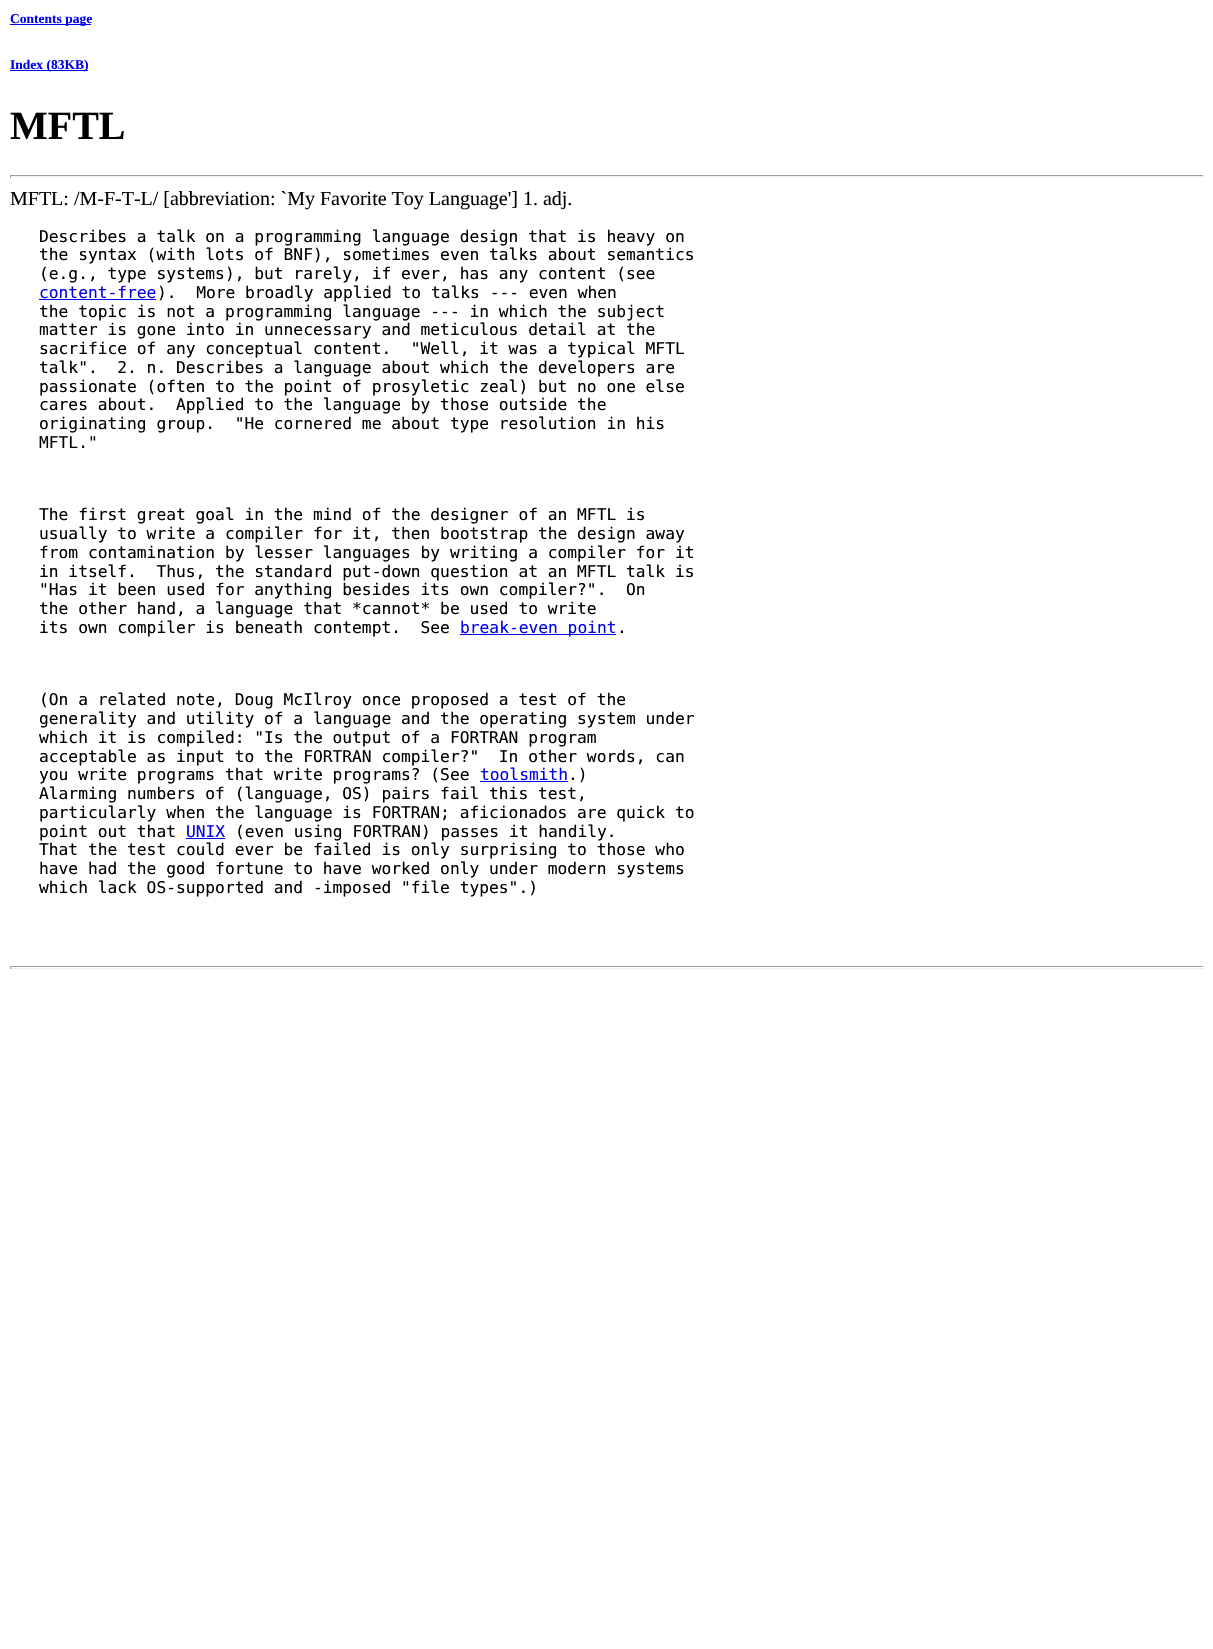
#include "include/core/SkBlurTypes.h"
#include "include/core/SkCanvas.h"
#include "include/core/SkData.h"
#include "include/core/SkFont.h"
#include "include/core/SkFontMgr.h"
#include "include/core/SkImage.h"
#include "include/core/SkMaskFilter.h"
#include "include/core/SkPaint.h"
#include "include/core/SkPathBuilder.h"
#include "include/core/SkTextBlob.h"
#include "include/effects/SkDashPathEffect.h"
#include "include/effects/SkGradientShader.h"
#include "include/utils/SkParsePath.h"

extern sk_sp<SkFontMgr> fontMgr;

void draw(SkCanvas* canvas) {
  SkPaint p;
  p.setAntiAlias(true);
  canvas->clear(SK_ColorWHITE);
  p.setColor(SkColorSetRGB(0, 0, 238));
  canvas->drawRect(SkRect::MakeLTRB(10, 24, 91, 25), p);
  canvas->drawRect(SkRect::MakeLTRB(10, 70, 88, 71), p);
  p.setColor(SkColorSetRGB(159, 159, 159));
  canvas->drawRect(SkRect::MakeLTRB(10, 175, 1204, 176), p);
  p.setColor(SkColorSetRGB(238, 238, 238));
  canvas->drawRect(SkRect::MakeLTRB(1203, 175, 1204, 178), p);
  canvas->drawRect(SkRect::MakeLTRB(10, 176, 1204, 177), p);
  p.setColor(SkColorSetRGB(159, 159, 159));
  canvas->drawRect(SkRect::MakeLTRB(10, 175, 11, 178), p);
  p.setColor(SkColorSetRGB(0, 0, 238));
  canvas->drawRect(SkRect::MakeLTRB(39, 299, 156, 300), p);
  canvas->drawRect(SkRect::MakeLTRB(460, 634, 616, 635), p);
  canvas->drawRect(SkRect::MakeLTRB(480, 781, 568, 782), p);
  canvas->drawRect(SkRect::MakeLTRB(186, 838, 225, 839), p);
  p.setColor(SkColorSetRGB(159, 159, 159));
  canvas->drawRect(SkRect::MakeLTRB(10, 966, 1204, 967), p);
  p.setColor(SkColorSetRGB(238, 238, 238));
  canvas->drawRect(SkRect::MakeLTRB(1203, 966, 1204, 969), p);
  canvas->drawRect(SkRect::MakeLTRB(10, 968, 1204, 969), p);
  p.setColor(SkColorSetRGB(159, 159, 159));
  canvas->drawRect(SkRect::MakeLTRB(10, 966, 11, 969), p);
  SkFont font1(fontMgr->matchFamilyStyle("Liberation Serif", SkFontStyle::Bold()), 13.5f);
  font1.setSubpixel(true);
  p.setColor(SkColorSetRGB(0, 0, 238));
  canvas->drawString("Contents page", 10, 23, font1, p);
  canvas->drawString("Index (83KB)", 10, 69, font1, p);
  SkFont font2(fontMgr->matchFamilyStyle("Liberation Serif", SkFontStyle::Bold()), 40);
  font2.setSubpixel(true);
  p.setColor(SK_ColorBLACK);
  canvas->drawString("MFTL", 10, 139, font2, p);
  SkFont font3(fontMgr->matchFamilyStyle("Liberation Serif", SkFontStyle::Normal()), 20);
  font3.setSubpixel(true);
  canvas->drawString("MFTL: /M-F-T-L/ [abbreviation: `My Favorite Toy Language'] 1. adj.", 10, 205, font3, p);
  SkFont font4(fontMgr->matchFamilyStyle("DejaVu Sans Mono", SkFontStyle::Normal()), 16.25f);
  font4.setSubpixel(true);
  canvas->drawString("Describes a talk on a programming language design that is heavy on", 39, 242, font4, p);
  canvas->drawString("the syntax (with lots of BNF), sometimes even talks about semantics", 39, 260, font4, p);
  canvas->drawString("(e.g., type systems), but rarely, if ever, has any content (see", 39, 279, font4, p);
  p.setColor(SkColorSetRGB(0, 0, 238));
  canvas->drawString("content-free", 39, 298, font4, p);
  p.setColor(SK_ColorBLACK);
  canvas->drawString(").  More broadly applied to talks --- even when", 157, 298, font4, p);
  canvas->drawString("the topic is not a programming language --- in which the subject", 39, 317, font4, p);
  canvas->drawString("matter is gone into in unnecessary and meticulous detail at the", 39, 335, font4, p);
  canvas->drawString("sacrifice of any conceptual content.  \"Well, it was a typical MFTL", 39, 354, font4, p);
  canvas->drawString("talk\".  2. n. Describes a language about which the developers are", 39, 373, font4, p);
  canvas->drawString("passionate (often to the point of prosyletic zeal) but no one else", 39, 392, font4, p);
  canvas->drawString("cares about.  Applied to the language by those outside the", 39, 410, font4, p);
  canvas->drawString("originating group.  \"He cornered me about type resolution in his", 39, 429, font4, p);
  canvas->drawString("MFTL.\"", 39, 448, font4, p);
  canvas->drawString("The first great goal in the mind of the designer of an MFTL is", 39, 520, font4, p);
  canvas->drawString("usually to write a compiler for it, then bootstrap the design away", 39, 539, font4, p);
  canvas->drawString("from contamination by lesser languages by writing a compiler for it", 39, 558, font4, p);
  canvas->drawString("in itself.  Thus, the standard put-down question at an MFTL talk is", 39, 577, font4, p);
  canvas->drawString("\"Has it been used for anything besides its own compiler?\".  On", 39, 595, font4, p);
  canvas->drawString("the other hand, a language that *cannot* be used to write", 39, 614, font4, p);
  canvas->drawString("its own compiler is beneath contempt.  See", 39, 633, font4, p);
  p.setColor(SkColorSetRGB(0, 0, 238));
  canvas->drawString("break-even point", 460, 633, font4, p);
  p.setColor(SK_ColorBLACK);
  canvas->drawString(".", 617, 633, font4, p);
  canvas->drawString("(On a related note, Doug McIlroy once proposed a test of the", 39, 705, font4, p);
  canvas->drawString("generality and utility of a language and the operating system under", 39, 724, font4, p);
  canvas->drawString("which it is compiled: \"Is the output of a FORTRAN program", 39, 743, font4, p);
  canvas->drawString("acceptable as input to the FORTRAN compiler?\"  In other words, can", 39, 762, font4, p);
  canvas->drawString("you write programs that write programs? (See", 39, 780, font4, p);
  p.setColor(SkColorSetRGB(0, 0, 238));
  canvas->drawString("toolsmith", 480, 780, font4, p);
  p.setColor(SK_ColorBLACK);
  canvas->drawString(".)", 568, 780, font4, p);
  canvas->drawString("Alarming numbers of (language, OS) pairs fail this test,", 39, 799, font4, p);
  canvas->drawString("particularly when the language is FORTRAN; aficionados are quick to", 39, 818, font4, p);
  canvas->drawString("point out that", 39, 837, font4, p);
  p.setColor(SkColorSetRGB(0, 0, 238));
  canvas->drawString("UNIX", 186, 837, font4, p);
  p.setColor(SK_ColorBLACK);
  canvas->drawString("(even using FORTRAN) passes it handily.", 235, 837, font4, p);
  canvas->drawString("That the test could ever be failed is only surprising to those who", 39, 855, font4, p);
  canvas->drawString("have had the good fortune to have worked only under modern systems", 39, 874, font4, p);
  canvas->drawString("which lack OS-supported and -imposed \"file types\".)", 39, 893, font4, p);
}
